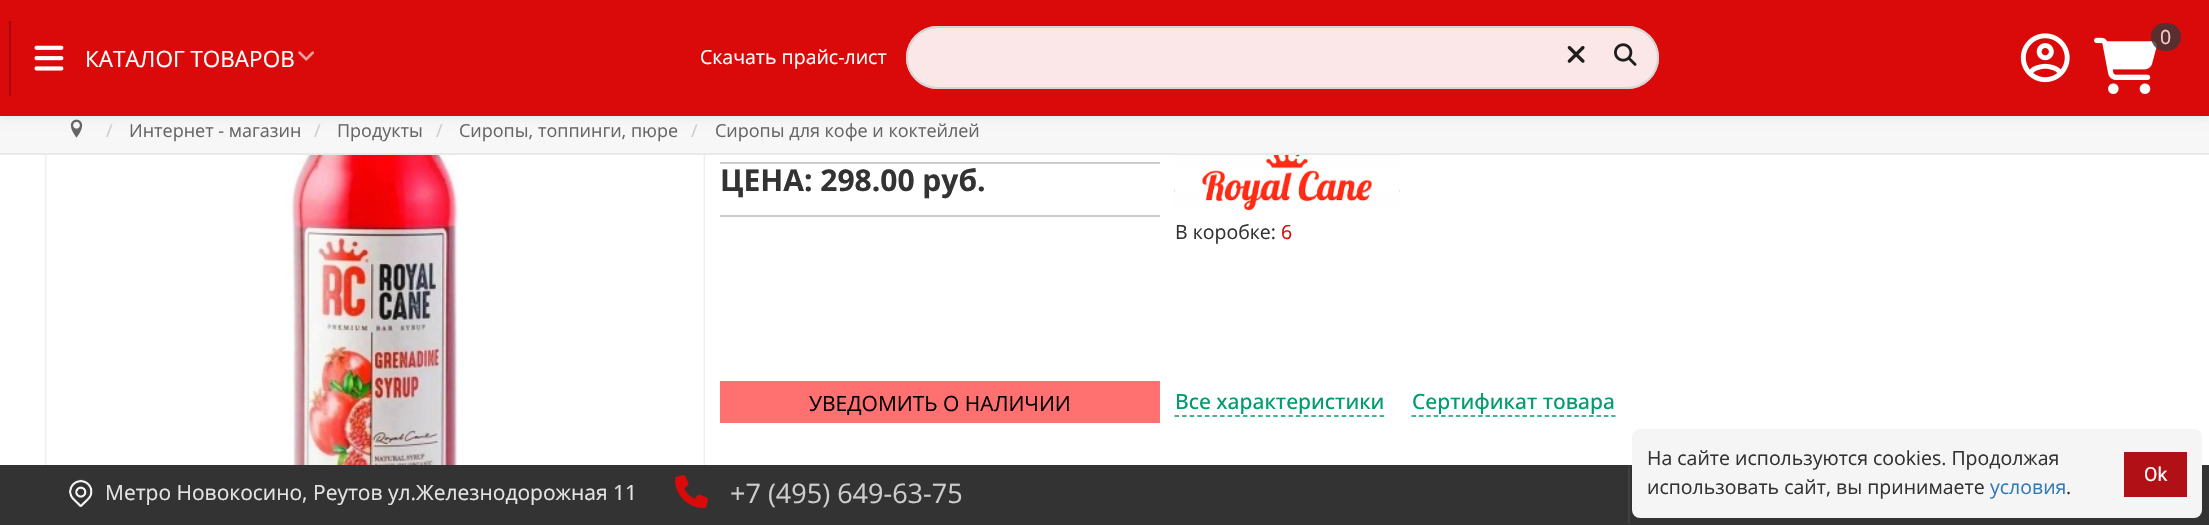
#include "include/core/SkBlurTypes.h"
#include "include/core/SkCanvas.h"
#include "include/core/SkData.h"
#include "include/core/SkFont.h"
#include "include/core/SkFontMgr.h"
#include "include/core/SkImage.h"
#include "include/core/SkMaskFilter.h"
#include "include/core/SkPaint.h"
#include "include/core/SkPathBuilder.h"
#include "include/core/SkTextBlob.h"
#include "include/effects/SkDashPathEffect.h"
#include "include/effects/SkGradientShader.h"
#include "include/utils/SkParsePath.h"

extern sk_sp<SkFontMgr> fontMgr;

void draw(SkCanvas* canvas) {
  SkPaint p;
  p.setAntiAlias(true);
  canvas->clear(SK_ColorWHITE);
  p.setStyle(SkPaint::kStroke_Style);
  p.setStrokeWidth(2);
  p.setColor(SkColorSetRGB(238, 238, 238));
  canvas->drawRect(SkRect::MakeLTRB(46, -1, 704, 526), p);
  p.setStyle(SkPaint::kFill_Style);
  p.setColor(SkColorSetRGB(247, 247, 247));
  canvas->drawRect(SkRect::MakeLTRB(0, 116, 2209, 153), p);
  canvas->drawImageRect(SkImages::DeferredFromEncodedData(SkData::MakeFromFileName("images/7.png")), SkRect::MakeLTRB(70, 119, 83, 138), SkSamplingOptions());
  p.setColor(SkColorSetARGB(23, 0, 0, 0));
  p.setMaskFilter(SkMaskFilter::MakeBlur(kNormal_SkBlurStyle, 5));
  canvas->drawRect(SkRect::MakeLTRB(0, 0, 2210, 116), p);
  p.setMaskFilter(nullptr);
  p.setColor(SkColorSetRGB(218, 10, 10));
  canvas->drawRect(SkRect::MakeLTRB(0, 0, 2209, 116), p);
  p.setColor(SkColorSetRGB(251, 231, 231));
  canvas->drawRoundRect(SkRect::MakeLTRB(906, 26, 1659, 89), 31.5f, 31.5f, p);
  p.setColor(SkColorSetRGB(232, 214, 214));
  canvas->drawPath(SkPathBuilder().moveTo(938, 28).lineTo(1628, 28).cubicTo(1644, 28, 1658, 42, 1658, 58).cubicTo(1658, 41, 1645, 27, 1628, 27).lineTo(938, 27).lineTo(932, 28).cubicTo(918, 30, 908, 43, 908, 58).cubicTo(908, 42, 921, 28, 938, 28).close().detach(), p);
  p.setStyle(SkPaint::kStroke_Style);
  p.setColor(SkColorSetRGB(213, 213, 213));
  canvas->drawRoundRect(SkRect::MakeLTRB(907, 27, 1658, 88), 30.5f, 30.5f, p);
  canvas->drawImageRect(SkImages::DeferredFromEncodedData(SkData::MakeFromFileName("images/1.png")), SkRect::MakeLTRB(1567, 46, 1585, 63), SkSamplingOptions());
  canvas->drawImageRect(SkImages::DeferredFromEncodedData(SkData::MakeFromFileName("images/2.png")), SkRect::MakeLTRB(1614, 43, 1637, 66), SkSamplingOptions());
  canvas->drawImageRect(SkImages::DeferredFromEncodedData(SkData::MakeFromFileName("images/3.png")), SkRect::MakeLTRB(2020, 33, 2070, 83), SkSamplingOptions());
  canvas->drawImageRect(SkImages::DeferredFromEncodedData(SkData::MakeFromFileName("images/4.png")), SkRect::MakeLTRB(2094, 37, 2157, 94), SkSamplingOptions());
  p.setStyle(SkPaint::kFill_Style);
  p.setColor(SkColorSetARGB(204, 55, 55, 55));
  canvas->drawRoundRect(SkRect::MakeLTRB(2151, 23, 2181, 51), 14, 14, p);
  p.setColor(SkColorSetRGB(165, 3, 21));
  canvas->drawRect(SkRect::MakeLTRB(9, 21, 11, 96), p);
  canvas->drawImageRect(SkImages::DeferredFromEncodedData(SkData::MakeFromFileName("images/5.png")), SkRect::MakeLTRB(34, 45, 64, 71), SkSamplingOptions());
  canvas->drawImageRect(SkImages::DeferredFromEncodedData(SkData::MakeFromFileName("images/6.png")), SkRect::MakeLTRB(298, 51, 314, 61), SkSamplingOptions());
  p.setColor(SkColorSetRGB(233, 233, 233));
  canvas->drawRect(SkRect::MakeLTRB(0, 153, 2209, 155), p);
  canvas->drawImageRect(SkImages::DeferredFromEncodedData(SkData::MakeFromFileName("images/8.png")), SkRect::MakeLTRB(46, 155, 704, 465), SkSamplingOptions());
  p.setColor(SkColorSetRGB(204, 204, 204));
  canvas->drawRect(SkRect::MakeLTRB(720, 162, 1160, 164), p);
  canvas->drawRect(SkRect::MakeLTRB(720, 215, 1160, 217), p);
  p.setStyle(SkPaint::kStroke_Style);
  p.setStrokeWidth(1.5f);
  p.setColor(SkColorSetRGB(0, 156, 110));
  p.setPathEffect(SkDashPathEffect::Make({{4.5f, 3.1f}}, 0));
  canvas->drawPath(SkPathBuilder().moveTo(1174.5f, 191).lineTo(1399.5f, 191).detach(), p);
  p.setPathEffect(nullptr);
  canvas->drawImageRect(SkImages::DeferredFromEncodedData(SkData::MakeFromFileName("images/9.png")), SkRect::MakeLTRB(1174, 155, 1400, 211), SkSamplingOptions());
  p.setStyle(SkPaint::kFill_Style);
  p.setColor(SkColorSetRGB(255, 112, 112));
  canvas->drawRect(SkRect::MakeLTRB(720, 381, 1160, 423), p);
  p.setStyle(SkPaint::kStroke_Style);
  p.setColor(SkColorSetRGB(0, 156, 110));
  p.setPathEffect(SkDashPathEffect::Make({{4.5f, 3.1f}}, 0));
  canvas->drawPath(SkPathBuilder().moveTo(1174.5f, 416).lineTo(1384.5f, 416).detach(), p);
  p.setPathEffect(nullptr);
  p.setPathEffect(SkDashPathEffect::Make({{4.5f, 2.9f}}, 0));
  canvas->drawPath(SkPathBuilder().moveTo(1411.5f, 416).lineTo(1615.5f, 416).detach(), p);
  p.setPathEffect(nullptr);
  p.setStyle(SkPaint::kFill_Style);
  p.setColor(SkColorSetRGB(51, 51, 51));
  canvas->drawRect(SkRect::MakeLTRB(0, 465, 2209, 525), p);
  canvas->drawImageRect(SkImages::DeferredFromEncodedData(SkData::MakeFromFileName("images/10.png")), SkRect::MakeLTRB(69, 479, 93, 507), SkSamplingOptions());
  canvas->drawImageRect(SkImages::DeferredFromEncodedData(SkData::MakeFromFileName("images/11.png")), SkRect::MakeLTRB(675, 475, 708, 509), SkSamplingOptions());
  p.setColor(SkColorSetRGB(64, 64, 64));
  canvas->drawRect(SkRect::MakeLTRB(1628, 465, 1630, 524), p);
  p.setColor(SkColorSetRGB(245, 245, 245));
  canvas->drawRoundRect(SkRect::MakeLTRB(1632, 429, 2202, 518), 8, 8, p);
  p.setColor(SkColorSetRGB(177, 17, 22));
  canvas->drawRect(SkRect::MakeLTRB(2124, 452, 2187, 497), p);
  SkFont font1(fontMgr->matchFamilyStyle("Open Sans", SkFontStyle::Normal()), 19.5f);
  font1.setSubpixel(true);
  p.setColor(SkColorSetRGB(248, 206, 206));
  canvas->drawString("0", 2160, 44, font1, p);
  SkFont font2(fontMgr->matchFamilyStyle("Open Sans", SkFontStyle::Normal()), 22.5f);
  font2.setSubpixel(true);
  p.setColor(SK_ColorWHITE);
  canvas->drawString("КАТАЛОГ ТОВАРОВ", 85, 67, font2, p);
  canvas->drawString("Скачать прайс-лист", 700, 64, font1, p);
  SkFont font3(fontMgr->matchFamilyStyle("Open Sans", SkFontStyle::Normal()), 18);
  font3.setSubpixel(true);
  p.setColor(SkColorSetRGB(204, 204, 204));
  canvas->drawString("/", 106, 137, font3, p);
  p.setColor(SkColorSetRGB(102, 102, 102));
  canvas->drawString("Интернет - магазин", 129, 137, font3, p);
  p.setColor(SkColorSetRGB(204, 204, 204));
  canvas->drawString("/", 314, 137, font3, p);
  p.setColor(SkColorSetRGB(102, 102, 102));
  canvas->drawString("Продукты", 337, 137, font3, p);
  p.setColor(SkColorSetRGB(204, 204, 204));
  canvas->drawString("/", 436, 137, font3, p);
  p.setColor(SkColorSetRGB(102, 102, 102));
  canvas->drawString("Сиропы, топпинги, пюре", 459, 137, font3, p);
  p.setColor(SkColorSetRGB(204, 204, 204));
  canvas->drawString("/", 691, 137, font3, p);
  p.setColor(SkColorSetRGB(102, 102, 102));
  canvas->drawString("Сиропы для кофе и коктейлей", 715, 137, font3, p);
  SkFont font4(fontMgr->matchFamilyStyle("Open Sans", SkFontStyle::Bold()), 30);
  font4.setSubpixel(true);
  p.setColor(SkColorSetRGB(51, 51, 51));
  canvas->drawString("ЦЕНА: 298.00 руб.", 720, 191, font4, p);
  canvas->drawString("В коробке:", 1175, 239, font1, p);
  p.setColor(SkColorSetRGB(218, 10, 10));
  canvas->drawString("6", 1281, 239, font1, p);
  SkFont font5(fontMgr->matchFamilyStyle("Open Sans", SkFontStyle::Normal()), 21);
  font5.setSubpixel(true);
  p.setColor(SK_ColorBLACK);
  canvas->drawString("УВЕДОМИТЬ О НАЛИЧИИ", 809, 411, font5, p);
  SkFont font6(fontMgr->matchFamilyStyle("Open Sans", SkFontStyle(500, SkFontStyle::kNormal_Width, SkFontStyle::kUpright_Slant)), 21);
  font6.setSubpixel(true);
  p.setColor(SkColorSetRGB(0, 156, 110));
  canvas->drawString("Все характеристики", 1175, 409, font6, p);
  canvas->drawString("Сертификат товара", 1412, 409, font6, p);
  p.setColor(SkColorSetRGB(228, 228, 228));
  canvas->drawString("Метро Новокосино, Реутов ул.Железнодорожная 11", 105, 500, font5, p);
  SkFont font7(fontMgr->matchFamilyStyle("Open Sans", SkFontStyle::Normal()), 27);
  font7.setSubpixel(true);
  p.setColor(SkColorSetRGB(204, 204, 204));
  canvas->drawString("+7 (495) 649-63-75", 730, 503, font7, p);
  p.setColor(SkColorSetRGB(51, 51, 51));
  canvas->drawString("На сайте используются cookies. Продолжая", 1647, 465, font1, p);
  canvas->drawString("использовать сайт, вы принимаете", 1647, 494, font1, p);
  p.setColor(SkColorSetRGB(51, 122, 183));
  canvas->drawString("условия", 1990, 494, font1, p);
  p.setColor(SkColorSetRGB(51, 51, 51));
  canvas->drawString(".", 2066, 494, font1, p);
  SkFont font8(fontMgr->matchFamilyStyle("Roboto", SkFontStyle::Normal()), 19.5f);
  font8.setSubpixel(true);
  p.setColor(SK_ColorWHITE);
  canvas->drawString("Ok", 2144, 481, font8, p);
}
